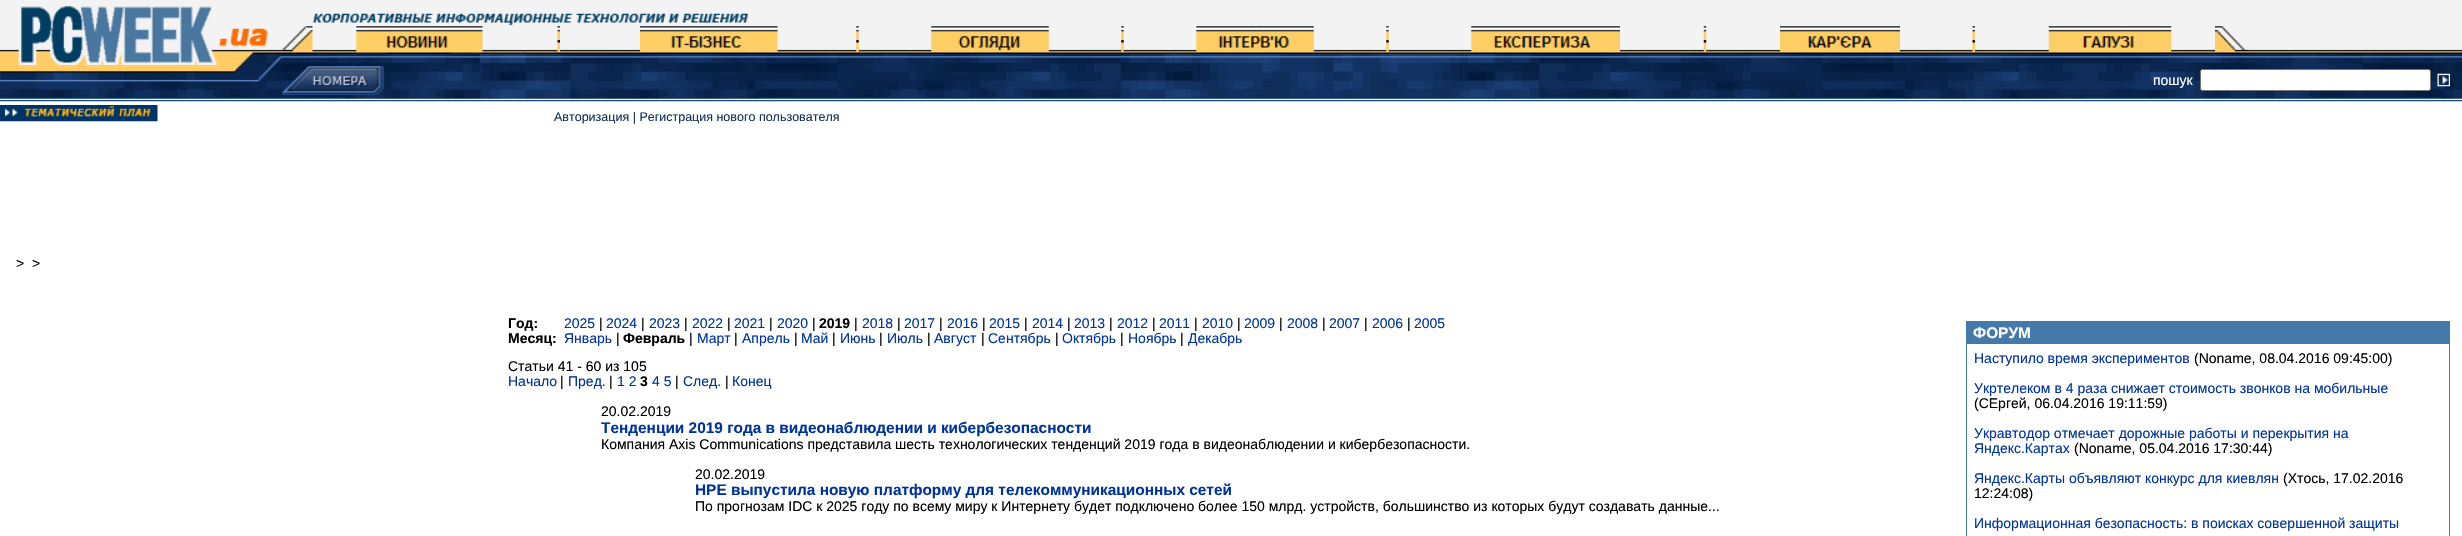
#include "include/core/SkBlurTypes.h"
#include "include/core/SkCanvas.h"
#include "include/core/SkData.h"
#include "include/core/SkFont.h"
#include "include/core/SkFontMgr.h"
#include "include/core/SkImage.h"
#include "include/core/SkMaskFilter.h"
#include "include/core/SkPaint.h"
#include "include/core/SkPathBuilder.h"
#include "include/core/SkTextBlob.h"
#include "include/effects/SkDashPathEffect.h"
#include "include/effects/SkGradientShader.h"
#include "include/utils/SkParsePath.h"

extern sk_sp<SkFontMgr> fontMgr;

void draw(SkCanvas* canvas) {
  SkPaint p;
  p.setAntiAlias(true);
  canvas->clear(SK_ColorWHITE);
  canvas->drawImageRect(SkImages::DeferredFromEncodedData(SkData::MakeFromFileName("images/1.png")), SkRect::MakeLTRB(0, 0, 2462, 102), SkSamplingOptions());
  canvas->drawImageRect(SkImages::DeferredFromEncodedData(SkData::MakeFromFileName("images/4.png")), SkRect::MakeLTRB(282, 49, 2462, 54), SkSamplingOptions());
  canvas->drawImageRect(SkImages::DeferredFromEncodedData(SkData::MakeFromFileName("images/2.png")), SkRect::MakeLTRB(0, 6, 283, 73), SkSamplingOptions());
  canvas->drawImageRect(SkImages::DeferredFromEncodedData(SkData::MakeFromFileName("images/3.png")), SkRect::MakeLTRB(312, 13, 749, 26), SkSamplingOptions());
  canvas->drawImageRect(SkImages::DeferredFromEncodedData(SkData::MakeFromFileName("images/5.png")), SkRect::MakeLTRB(282, 26, 313, 54), SkSamplingOptions());
  canvas->drawImageRect(SkImages::DeferredFromEncodedData(SkData::MakeFromFileName("images/6.png")), SkRect::MakeLTRB(356, 26, 483, 54), SkSamplingOptions());
  canvas->drawImageRect(SkImages::DeferredFromEncodedData(SkData::MakeFromFileName("images/7.png")), SkRect::MakeLTRB(557, 26, 560, 54), SkSamplingOptions());
  canvas->drawImageRect(SkImages::DeferredFromEncodedData(SkData::MakeFromFileName("images/8.png")), SkRect::MakeLTRB(640, 26, 778, 54), SkSamplingOptions());
  canvas->drawImageRect(SkImages::DeferredFromEncodedData(SkData::MakeFromFileName("images/9.png")), SkRect::MakeLTRB(856, 26, 859, 54), SkSamplingOptions());
  canvas->drawImageRect(SkImages::DeferredFromEncodedData(SkData::MakeFromFileName("images/10.png")), SkRect::MakeLTRB(931, 26, 1049, 54), SkSamplingOptions());
  canvas->drawImageRect(SkImages::DeferredFromEncodedData(SkData::MakeFromFileName("images/11.png")), SkRect::MakeLTRB(1121, 26, 1124, 54), SkSamplingOptions());
  canvas->drawImageRect(SkImages::DeferredFromEncodedData(SkData::MakeFromFileName("images/12.png")), SkRect::MakeLTRB(1196, 26, 1314, 54), SkSamplingOptions());
  canvas->drawImageRect(SkImages::DeferredFromEncodedData(SkData::MakeFromFileName("images/13.png")), SkRect::MakeLTRB(1386, 26, 1389, 54), SkSamplingOptions());
  canvas->drawImageRect(SkImages::DeferredFromEncodedData(SkData::MakeFromFileName("images/14.png")), SkRect::MakeLTRB(1471, 26, 1620, 54), SkSamplingOptions());
  canvas->drawImageRect(SkImages::DeferredFromEncodedData(SkData::MakeFromFileName("images/15.png")), SkRect::MakeLTRB(1703, 26, 1707, 54), SkSamplingOptions());
  canvas->drawImageRect(SkImages::DeferredFromEncodedData(SkData::MakeFromFileName("images/16.png")), SkRect::MakeLTRB(1780, 26, 1900, 54), SkSamplingOptions());
  canvas->drawImageRect(SkImages::DeferredFromEncodedData(SkData::MakeFromFileName("images/17.png")), SkRect::MakeLTRB(1972, 26, 1975, 54), SkSamplingOptions());
  canvas->drawImageRect(SkImages::DeferredFromEncodedData(SkData::MakeFromFileName("images/18.png")), SkRect::MakeLTRB(2048, 26, 2172, 54), SkSamplingOptions());
  canvas->drawImageRect(SkImages::DeferredFromEncodedData(SkData::MakeFromFileName("images/19.png")), SkRect::MakeLTRB(2215, 26, 2245, 54), SkSamplingOptions());
  canvas->drawImageRect(SkImages::DeferredFromEncodedData(SkData::MakeFromFileName("images/20.png")), SkRect::MakeLTRB(2245, 49, 2248, 54), SkSamplingOptions());
  canvas->drawImageRect(SkImages::DeferredFromEncodedData(SkData::MakeFromFileName("images/21.png")), SkRect::MakeLTRB(282, 66, 384, 95), SkSamplingOptions());
  p.setColor(SK_ColorWHITE);
  canvas->drawRoundRect(SkRect::MakeLTRB(2200.5f, 69.5f, 2430.5f, 90.5f), 2, 2, p);
  p.setStyle(SkPaint::kStroke_Style);
  p.setStrokeWidth(1);
  p.setColor(SkColorSetRGB(118, 118, 118));
  canvas->drawRoundRect(SkRect::MakeLTRB(2200.5f, 69.5f, 2430.5f, 90.5f), 2, 2, p);
  canvas->drawImageRect(SkImages::DeferredFromEncodedData(SkData::MakeFromFileName("images/22.png")), SkRect::MakeLTRB(2437, 73, 2450, 87), SkSamplingOptions());
  canvas->drawImageRect(SkImages::DeferredFromEncodedData(SkData::MakeFromFileName("images/23.png")), SkRect::MakeLTRB(0, 105, 158, 122), SkSamplingOptions());
  p.setStyle(SkPaint::kFill_Style);
  p.setColor(SkColorSetRGB(69, 121, 169));
  canvas->drawRect(SkRect::MakeLTRB(1966, 321, 2450, 344), p);
  canvas->drawRect(SkRect::MakeLTRB(2449, 344, 2450, 536), p);
  canvas->drawRect(SkRect::MakeLTRB(1966, 344, 1967, 536), p);
  SkFont font1(fontMgr->matchFamilyStyle("Liberation Sans", SkFontStyle::Normal()), 14);
  font1.setSubpixel(true);
  p.setColor(SK_ColorWHITE);
  canvas->drawString("пошук", 2153, 85, font1, p);
  SkFont font2(fontMgr->matchFamilyStyle("Liberation Sans", SkFontStyle::Normal()), 12.5f);
  font2.setSubpixel(true);
  p.setColor(SkColorSetRGB(17, 48, 96));
  canvas->drawString("Авторизация | Регистрация нового пользователя", 554, 121, font2, p);
  p.setColor(SK_ColorBLACK);
  canvas->drawString(">", 16, 268, font1, p);
  canvas->drawString(">", 32, 268, font1, p);
  SkFont font3(fontMgr->matchFamilyStyle("Liberation Sans", SkFontStyle::Bold()), 14);
  font3.setSubpixel(true);
  canvas->drawString("Год:", 508, 328, font3, p);
  p.setColor(SkColorSetRGB(0, 51, 153));
  canvas->drawString("2025", 564, 328, font1, p);
  p.setColor(SK_ColorBLACK);
  canvas->drawString("|", 599, 328, font1, p);
  p.setColor(SkColorSetRGB(0, 51, 153));
  canvas->drawString("2024", 606, 328, font1, p);
  p.setColor(SK_ColorBLACK);
  canvas->drawString("|", 641, 328, font1, p);
  p.setColor(SkColorSetRGB(0, 51, 153));
  canvas->drawString("2023", 649, 328, font1, p);
  p.setColor(SK_ColorBLACK);
  canvas->drawString("|", 684, 328, font1, p);
  p.setColor(SkColorSetRGB(0, 51, 153));
  canvas->drawString("2022", 692, 328, font1, p);
  p.setColor(SK_ColorBLACK);
  canvas->drawString("|", 727, 328, font1, p);
  p.setColor(SkColorSetRGB(0, 51, 153));
  canvas->drawString("2021", 734, 328, font1, p);
  p.setColor(SK_ColorBLACK);
  canvas->drawString("|", 769, 328, font1, p);
  p.setColor(SkColorSetRGB(0, 51, 153));
  canvas->drawString("2020", 777, 328, font1, p);
  p.setColor(SK_ColorBLACK);
  canvas->drawString("|", 812, 328, font1, p);
  canvas->drawString("2019", 819, 328, font3, p);
  canvas->drawString("|", 854, 328, font1, p);
  p.setColor(SkColorSetRGB(0, 51, 153));
  canvas->drawString("2018", 862, 328, font1, p);
  p.setColor(SK_ColorBLACK);
  canvas->drawString("|", 897, 328, font1, p);
  p.setColor(SkColorSetRGB(0, 51, 153));
  canvas->drawString("2017", 904, 328, font1, p);
  p.setColor(SK_ColorBLACK);
  canvas->drawString("|", 939, 328, font1, p);
  p.setColor(SkColorSetRGB(0, 51, 153));
  canvas->drawString("2016", 947, 328, font1, p);
  p.setColor(SK_ColorBLACK);
  canvas->drawString("|", 982, 328, font1, p);
  p.setColor(SkColorSetRGB(0, 51, 153));
  canvas->drawString("2015", 989, 328, font1, p);
  p.setColor(SK_ColorBLACK);
  canvas->drawString("|", 1024, 328, font1, p);
  p.setColor(SkColorSetRGB(0, 51, 153));
  canvas->drawString("2014", 1032, 328, font1, p);
  p.setColor(SK_ColorBLACK);
  canvas->drawString("|", 1067, 328, font1, p);
  p.setColor(SkColorSetRGB(0, 51, 153));
  canvas->drawString("2013", 1074, 328, font1, p);
  p.setColor(SK_ColorBLACK);
  canvas->drawString("|", 1109, 328, font1, p);
  p.setColor(SkColorSetRGB(0, 51, 153));
  canvas->drawString("2012", 1117, 328, font1, p);
  p.setColor(SK_ColorBLACK);
  canvas->drawString("|", 1152, 328, font1, p);
  p.setColor(SkColorSetRGB(0, 51, 153));
  canvas->drawString("2011", 1159, 328, font1, p);
  p.setColor(SK_ColorBLACK);
  canvas->drawString("|", 1194, 328, font1, p);
  p.setColor(SkColorSetRGB(0, 51, 153));
  canvas->drawString("2010", 1202, 328, font1, p);
  p.setColor(SK_ColorBLACK);
  canvas->drawString("|", 1237, 328, font1, p);
  p.setColor(SkColorSetRGB(0, 51, 153));
  canvas->drawString("2009", 1244, 328, font1, p);
  p.setColor(SK_ColorBLACK);
  canvas->drawString("|", 1279, 328, font1, p);
  p.setColor(SkColorSetRGB(0, 51, 153));
  canvas->drawString("2008", 1287, 328, font1, p);
  p.setColor(SK_ColorBLACK);
  canvas->drawString("|", 1322, 328, font1, p);
  p.setColor(SkColorSetRGB(0, 51, 153));
  canvas->drawString("2007", 1329, 328, font1, p);
  p.setColor(SK_ColorBLACK);
  canvas->drawString("|", 1364, 328, font1, p);
  p.setColor(SkColorSetRGB(0, 51, 153));
  canvas->drawString("2006", 1372, 328, font1, p);
  p.setColor(SK_ColorBLACK);
  canvas->drawString("|", 1407, 328, font1, p);
  p.setColor(SkColorSetRGB(0, 51, 153));
  canvas->drawString("2005", 1414, 328, font1, p);
  p.setColor(SK_ColorBLACK);
  canvas->drawString("Месяц:", 508, 343, font3, p);
  p.setColor(SkColorSetRGB(0, 51, 153));
  canvas->drawString("Январь", 564, 343, font1, p);
  p.setColor(SK_ColorBLACK);
  canvas->drawString("|", 616, 343, font1, p);
  canvas->drawString("Февраль", 623, 343, font3, p);
  canvas->drawString("|", 689, 343, font1, p);
  p.setColor(SkColorSetRGB(0, 51, 153));
  canvas->drawString("Март", 697, 343, font1, p);
  p.setColor(SK_ColorBLACK);
  canvas->drawString("|", 734, 343, font1, p);
  p.setColor(SkColorSetRGB(0, 51, 153));
  canvas->drawString("Апрель", 742, 343, font1, p);
  p.setColor(SK_ColorBLACK);
  canvas->drawString("|", 794, 343, font1, p);
  p.setColor(SkColorSetRGB(0, 51, 153));
  canvas->drawString("Май", 801, 343, font1, p);
  p.setColor(SK_ColorBLACK);
  canvas->drawString("|", 832, 343, font1, p);
  p.setColor(SkColorSetRGB(0, 51, 153));
  canvas->drawString("Июнь", 840, 343, font1, p);
  p.setColor(SK_ColorBLACK);
  canvas->drawString("|", 879, 343, font1, p);
  p.setColor(SkColorSetRGB(0, 51, 153));
  canvas->drawString("Июль", 887, 343, font1, p);
  p.setColor(SK_ColorBLACK);
  canvas->drawString("|", 927, 343, font1, p);
  p.setColor(SkColorSetRGB(0, 51, 153));
  canvas->drawString("Август", 934, 343, font1, p);
  p.setColor(SK_ColorBLACK);
  canvas->drawString("|", 981, 343, font1, p);
  p.setColor(SkColorSetRGB(0, 51, 153));
  canvas->drawString("Сентябрь", 988, 343, font1, p);
  p.setColor(SK_ColorBLACK);
  canvas->drawString("|", 1055, 343, font1, p);
  p.setColor(SkColorSetRGB(0, 51, 153));
  canvas->drawString("Октябрь", 1062, 343, font1, p);
  p.setColor(SK_ColorBLACK);
  canvas->drawString("|", 1120, 343, font1, p);
  p.setColor(SkColorSetRGB(0, 51, 153));
  canvas->drawString("Ноябрь", 1128, 343, font1, p);
  p.setColor(SK_ColorBLACK);
  canvas->drawString("|", 1180, 343, font1, p);
  p.setColor(SkColorSetRGB(0, 51, 153));
  canvas->drawString("Декабрь", 1188, 343, font1, p);
  p.setColor(SK_ColorBLACK);
  canvas->drawString("Статьи 41 - 60 из 105", 508, 371, font1, p);
  p.setColor(SkColorSetRGB(0, 51, 153));
  canvas->drawString("Начало", 508, 386, font1, p);
  p.setColor(SK_ColorBLACK);
  canvas->drawString("|", 560, 386, font1, p);
  p.setColor(SkColorSetRGB(0, 51, 153));
  canvas->drawString("Пред.", 568, 386, font1, p);
  p.setColor(SK_ColorBLACK);
  canvas->drawString("|", 609, 386, font1, p);
  p.setColor(SkColorSetRGB(0, 51, 153));
  canvas->drawString("1 2", 617, 386, font1, p);
  p.setColor(SK_ColorBLACK);
  canvas->drawString("3", 640, 386, font3, p);
  p.setColor(SkColorSetRGB(0, 51, 153));
  canvas->drawString("4 5", 652, 386, font1, p);
  p.setColor(SK_ColorBLACK);
  canvas->drawString("|", 675, 386, font1, p);
  p.setColor(SkColorSetRGB(0, 51, 153));
  canvas->drawString("След.", 683, 386, font1, p);
  p.setColor(SK_ColorBLACK);
  canvas->drawString("|", 725, 386, font1, p);
  p.setColor(SkColorSetRGB(0, 51, 153));
  canvas->drawString("Конец", 732, 386, font1, p);
  p.setColor(SK_ColorBLACK);
  canvas->drawString("20.02.2019", 601, 416, font1, p);
  SkFont font4(fontMgr->matchFamilyStyle("Liberation Sans", SkFontStyle::Bold()), 15.4f);
  font4.setSubpixel(true);
  p.setColor(SkColorSetRGB(0, 51, 153));
  canvas->drawString("Тенденции 2019 года в видеонаблюдении и кибербезопасности", 601, 433, font4, p);
  p.setColor(SK_ColorBLACK);
  canvas->drawString("Компания Axis Communications представила шесть технологических тенденций 2019 года в видеонаблюдении и кибербезопасности.", 601, 449, font1, p);
  canvas->drawString("20.02.2019", 695, 479, font1, p);
  p.setColor(SkColorSetRGB(0, 51, 153));
  canvas->drawString("HPE выпустила новую платформу для телекоммуникационных сетей", 695, 495, font4, p);
  p.setColor(SK_ColorBLACK);
  canvas->drawString("По прогнозам IDC к 2025 году по всему миру к Интернету будет подключено более 150 млрд. устройств, большинство из которых будут создавать данные...", 695, 511, font1, p);
  p.setColor(SK_ColorWHITE);
  canvas->drawString("ФОРУМ", 1973, 338, font4, p);
  p.setColor(SkColorSetRGB(0, 51, 153));
  canvas->drawString("Наступило время экспериментов", 1974, 363, font1, p);
  p.setColor(SK_ColorBLACK);
  canvas->drawString("(Noname, 08.04.2016 09:45:00)", 2194, 363, font1, p);
  p.setColor(SkColorSetRGB(0, 51, 153));
  canvas->drawString("Укртелеком в 4 раза снижает стоимость звонков на мобильные", 1974, 393, font1, p);
  p.setColor(SK_ColorBLACK);
  canvas->drawString("(СЕргей, 06.04.2016 19:11:59)", 1974, 408, font1, p);
  p.setColor(SkColorSetRGB(0, 51, 153));
  canvas->drawString("Укравтодор отмечает дорожные работы и перекрытия на", 1974, 438, font1, p);
  canvas->drawString("Яндекс.Картах", 1974, 453, font1, p);
  p.setColor(SK_ColorBLACK);
  canvas->drawString("(Noname, 05.04.2016 17:30:44)", 2074, 453, font1, p);
  p.setColor(SkColorSetRGB(0, 51, 153));
  canvas->drawString("Яндекс.Карты объявляют конкурс для киевлян", 1974, 483, font1, p);
  p.setColor(SK_ColorBLACK);
  canvas->drawString("(Хтось, 17.02.2016", 2283, 483, font1, p);
  canvas->drawString("12:24:08)", 1974, 498, font1, p);
  p.setColor(SkColorSetRGB(0, 51, 153));
  canvas->drawString("Информационная безопасность: в поисках совершенной защиты", 1974, 528, font1, p);
}
